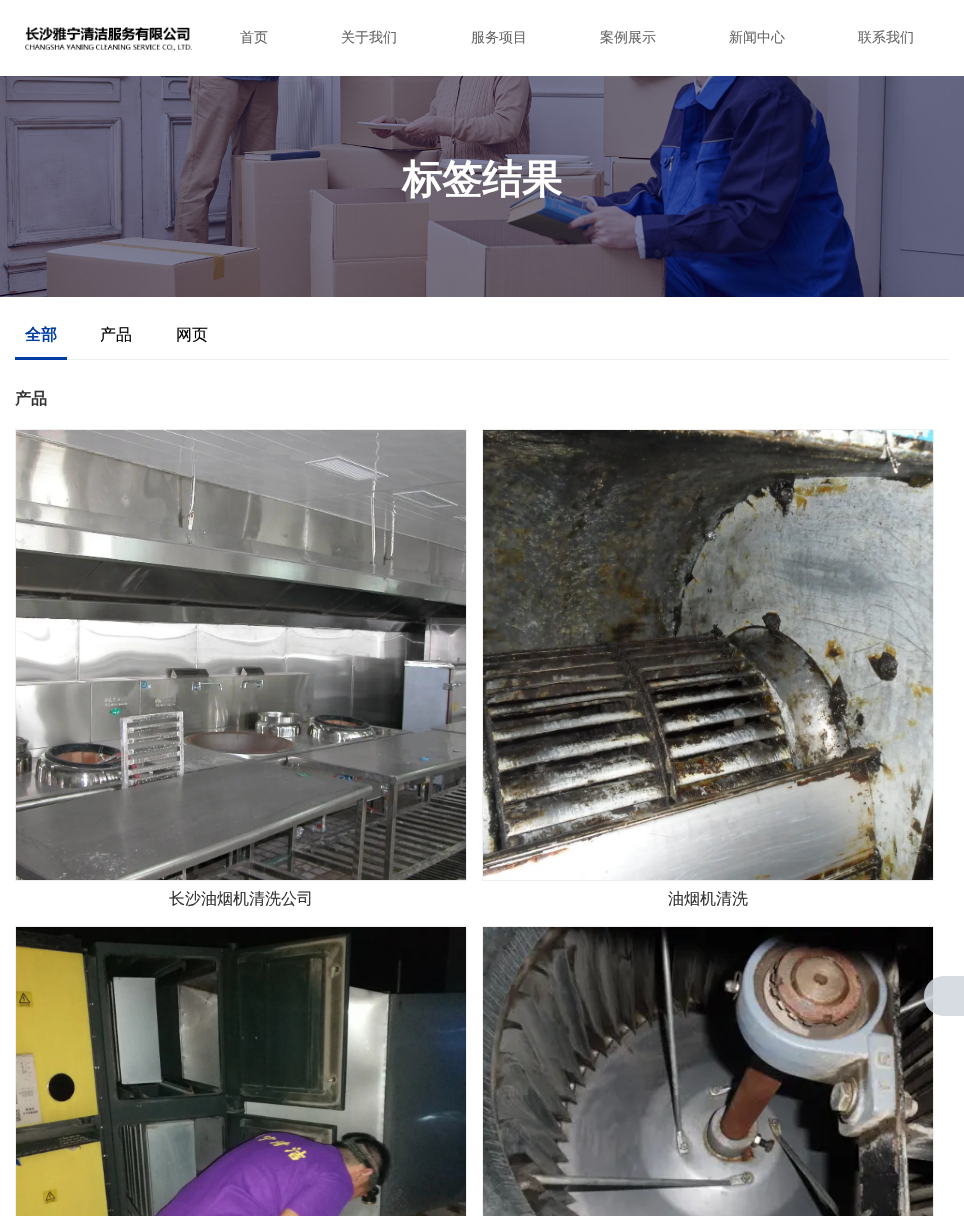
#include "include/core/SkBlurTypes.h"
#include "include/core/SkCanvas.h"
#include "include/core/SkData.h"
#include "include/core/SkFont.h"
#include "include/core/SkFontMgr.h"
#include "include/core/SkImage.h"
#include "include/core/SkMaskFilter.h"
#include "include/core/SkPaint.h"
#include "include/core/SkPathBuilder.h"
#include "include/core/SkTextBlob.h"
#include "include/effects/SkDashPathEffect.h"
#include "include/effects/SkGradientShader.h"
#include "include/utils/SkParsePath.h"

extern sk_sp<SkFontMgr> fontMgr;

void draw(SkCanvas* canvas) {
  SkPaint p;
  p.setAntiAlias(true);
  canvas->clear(SK_ColorWHITE);
  canvas->drawImageRect(SkImages::DeferredFromEncodedData(SkData::MakeFromFileName("images/1.png")), SkRect::MakeLTRB(25, 27, 192, 51), SkSamplingOptions());
  canvas->drawImageRect(SkImages::DeferredFromEncodedData(SkData::MakeFromFileName("images/2.png")), SkRect::MakeLTRB(0, 76, 964, 297), SkSamplingOptions());
  p.setColor(SkColorSetRGB(239, 239, 239));
  canvas->drawRect(SkRect::MakeLTRB(67, 359, 949, 360), p);
  p.setColor(SkColorSetRGB(0, 61, 167));
  canvas->drawRect(SkRect::MakeLTRB(15, 357, 67, 360), p);
  p.setStyle(SkPaint::kStroke_Style);
  p.setStrokeWidth(1);
  p.setColor(SkColorSetRGB(239, 239, 239));
  canvas->drawRect(SkRect::MakeLTRB(15.5f, 429.5f, 466.5f, 880.5f), p);
  canvas->drawImageRect(SkImages::DeferredFromEncodedData(SkData::MakeFromFileName("images/3.png")), SkRect::MakeLTRB(16, 430, 466, 880), SkSamplingOptions());
  canvas->drawRect(SkRect::MakeLTRB(482.5f, 429.5f, 933.5f, 880.5f), p);
  canvas->drawImageRect(SkImages::DeferredFromEncodedData(SkData::MakeFromFileName("images/4.png")), SkRect::MakeLTRB(483, 430, 933, 880), SkSamplingOptions());
  canvas->drawRect(SkRect::MakeLTRB(15.5f, 926.5f, 466.5f, 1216.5f), p);
  canvas->drawImageRect(SkImages::DeferredFromEncodedData(SkData::MakeFromFileName("images/5.png")), SkRect::MakeLTRB(16, 927, 466, 1216), SkSamplingOptions());
  canvas->drawRect(SkRect::MakeLTRB(482.5f, 926.5f, 933.5f, 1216.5f), p);
  canvas->drawImageRect(SkImages::DeferredFromEncodedData(SkData::MakeFromFileName("images/6.png")), SkRect::MakeLTRB(483, 927, 933, 1216), SkSamplingOptions());
  p.setStyle(SkPaint::kFill_Style);
  p.setColor(SkColorSetARGB(217, 208, 214, 222));
  canvas->drawPath(SkPathBuilder().moveTo(944, 976).lineTo(964, 976).lineTo(964, 1016).lineTo(944, 1016).cubicTo(933, 1016, 924, 1007, 924, 996).cubicTo(924, 985, 933, 976, 944, 976).close().detach(), p);
  SkFont font1(fontMgr->matchFamilyStyle("WenQuanYi Zen Hei", SkFontStyle(500, SkFontStyle::kNormal_Width, SkFontStyle::kUpright_Slant)), 14);
  font1.setSubpixel(true);
  p.setColor(SkColorSetRGB(102, 102, 102));
  canvas->drawString("首页", 240, 42, font1, p);
  canvas->drawString("关于我们", 341, 42, font1, p);
  canvas->drawString("服务项目", 471, 42, font1, p);
  canvas->drawString("案例展示", 600, 42, font1, p);
  canvas->drawString("新闻中心", 729, 42, font1, p);
  canvas->drawString("联系我们", 858, 42, font1, p);
  SkFont font2(fontMgr->matchFamilyStyle("WenQuanYi Zen Hei", SkFontStyle::Bold()), 40);
  font2.setSubpixel(true);
  p.setColor(SK_ColorWHITE);
  canvas->drawString("标签结果", 402, 193, font2, p);
  SkFont font3(fontMgr->matchFamilyStyle("WenQuanYi Zen Hei", SkFontStyle::Bold()), 16);
  font3.setSubpixel(true);
  p.setColor(SkColorSetRGB(0, 61, 167));
  canvas->drawString("全部", 25, 340, font3, p);
  SkFont font4(fontMgr->matchFamilyStyle("WenQuanYi Zen Hei", SkFontStyle(500, SkFontStyle::kNormal_Width, SkFontStyle::kUpright_Slant)), 16);
  font4.setSubpixel(true);
  p.setColor(SK_ColorBLACK);
  canvas->drawString("产品", 100, 340, font4, p);
  canvas->drawString("网页", 176, 340, font4, p);
  p.setColor(SkColorSetRGB(51, 51, 51));
  canvas->drawString("产品", 15, 404, font3, p);
  canvas->drawString("长沙油烟机清洗公司", 169, 904, font4, p);
  canvas->drawString("油烟机清洗", 668, 904, font4, p);
}
